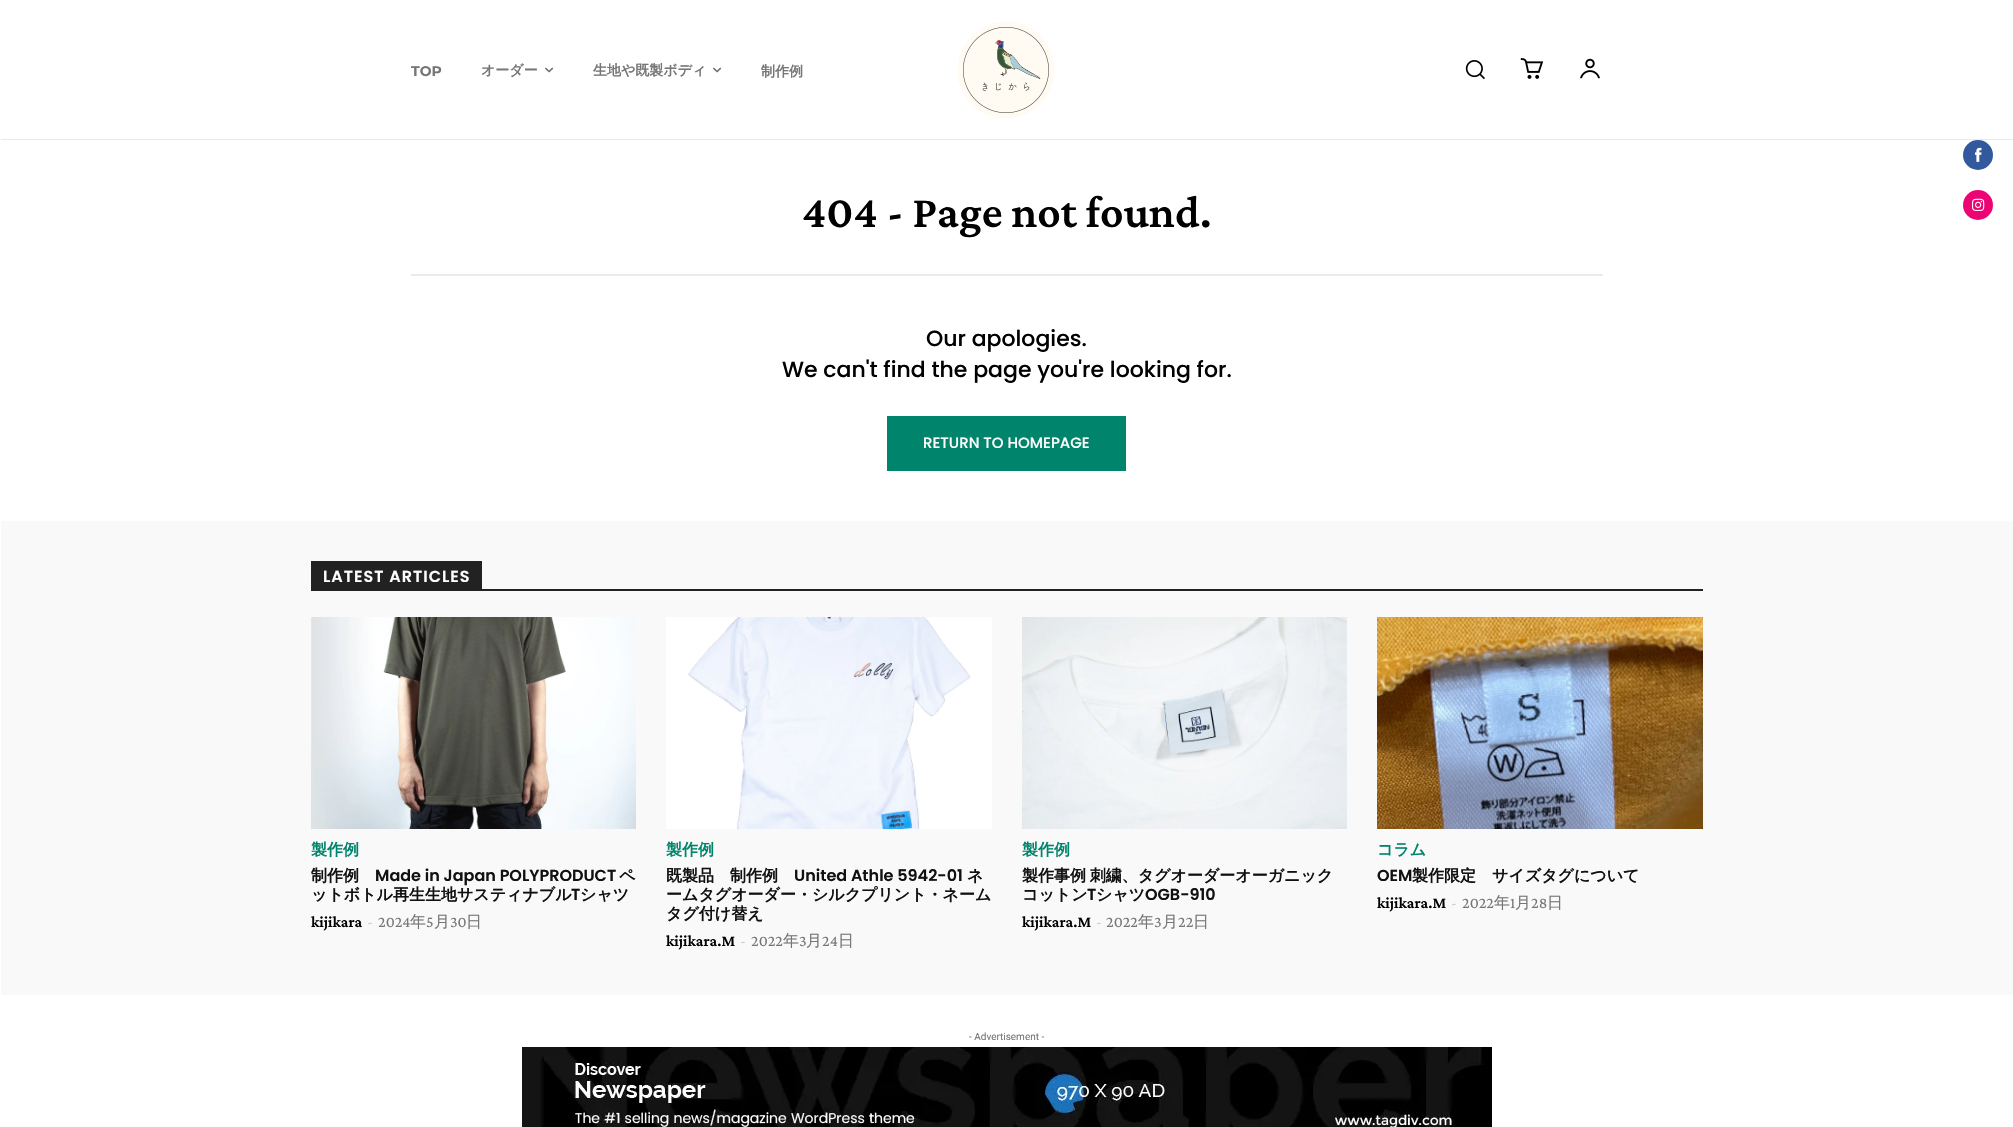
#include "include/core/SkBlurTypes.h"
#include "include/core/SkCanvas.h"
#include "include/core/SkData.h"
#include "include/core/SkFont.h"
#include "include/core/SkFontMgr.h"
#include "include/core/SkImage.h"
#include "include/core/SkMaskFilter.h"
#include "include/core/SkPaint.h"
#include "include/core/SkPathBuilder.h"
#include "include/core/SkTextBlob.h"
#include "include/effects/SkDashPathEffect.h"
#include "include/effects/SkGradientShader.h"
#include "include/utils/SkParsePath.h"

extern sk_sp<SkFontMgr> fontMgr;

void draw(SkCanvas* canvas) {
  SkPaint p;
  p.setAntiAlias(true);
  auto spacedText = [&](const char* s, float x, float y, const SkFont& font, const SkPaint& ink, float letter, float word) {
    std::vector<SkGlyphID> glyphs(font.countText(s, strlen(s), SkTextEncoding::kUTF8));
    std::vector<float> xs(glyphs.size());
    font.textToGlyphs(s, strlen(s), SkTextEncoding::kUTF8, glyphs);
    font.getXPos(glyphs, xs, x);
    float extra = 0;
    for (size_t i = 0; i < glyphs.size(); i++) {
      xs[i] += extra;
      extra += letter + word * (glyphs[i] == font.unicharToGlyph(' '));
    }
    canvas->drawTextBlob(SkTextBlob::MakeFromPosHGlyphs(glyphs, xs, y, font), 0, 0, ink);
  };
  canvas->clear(SK_ColorWHITE);
  canvas->drawImageRect(SkImages::DeferredFromEncodedData(SkData::MakeFromFileName("images/1.png")), SkRect::MakeLTRB(545, 67, 554, 73), SkSamplingOptions());
  canvas->drawImageRect(SkImages::DeferredFromEncodedData(SkData::MakeFromFileName("images/1.png")), SkRect::MakeLTRB(713, 67, 722, 73), SkSamplingOptions());
  canvas->drawImageRect(SkImages::DeferredFromEncodedData(SkData::MakeFromFileName("images/2.png")), SkRect::MakeLTRB(957, 21, 1055, 119), SkSamplingOptions());
  canvas->drawImageRect(SkImages::DeferredFromEncodedData(SkData::MakeFromFileName("images/3.png")), SkRect::MakeLTRB(1465, 60, 1485, 80), SkSamplingOptions());
  canvas->drawImageRect(SkImages::DeferredFromEncodedData(SkData::MakeFromFileName("images/4.png")), SkRect::MakeLTRB(1520, 58, 1544, 79), SkSamplingOptions());
  canvas->drawImageRect(SkImages::DeferredFromEncodedData(SkData::MakeFromFileName("images/5.png")), SkRect::MakeLTRB(1580, 58, 1600, 79), SkSamplingOptions());
  p.setColor(SkColorSetRGB(234, 232, 232));
  canvas->drawRect(SkRect::MakeLTRB(1, 139, 2013, 140), p);
  p.setColor(SkColorSetRGB(235, 235, 235));
  canvas->drawRect(SkRect::MakeLTRB(411, 274, 1603, 276), p);
  p.setColor(SkColorSetRGB(0, 132, 107));
  canvas->drawRect(SkRect::MakeLTRB(887, 416, 1126, 471), p);
  p.setColor(SkColorSetRGB(249, 249, 249));
  canvas->drawRect(SkRect::MakeLTRB(1, 521, 2013, 995), p);
  p.setColor(SkColorSetRGB(34, 34, 34));
  canvas->drawRect(SkRect::MakeLTRB(311, 589, 1703, 591), p);
  canvas->drawRect(SkRect::MakeLTRB(311, 561, 482, 589), p);
  canvas->drawImageRect(SkImages::DeferredFromEncodedData(SkData::MakeFromFileName("images/6.png")), SkRect::MakeLTRB(311, 617, 636, 829), SkSamplingOptions());
  canvas->drawImageRect(SkImages::DeferredFromEncodedData(SkData::MakeFromFileName("images/7.png")), SkRect::MakeLTRB(666, 617, 992, 829), SkSamplingOptions());
  canvas->drawImageRect(SkImages::DeferredFromEncodedData(SkData::MakeFromFileName("images/8.png")), SkRect::MakeLTRB(1022, 617, 1347, 829), SkSamplingOptions());
  canvas->drawImageRect(SkImages::DeferredFromEncodedData(SkData::MakeFromFileName("images/9.png")), SkRect::MakeLTRB(1377, 617, 1703, 829), SkSamplingOptions());
  canvas->drawImageRect(SkImages::DeferredFromEncodedData(SkData::MakeFromFileName("images/10.png")), SkRect::MakeLTRB(522, 1047, 1492, 1127), SkSamplingOptions());
  p.setColor(SkColorSetRGB(50, 89, 157));
  canvas->drawCircle(1978, 155, 15, p);
  canvas->drawImageRect(SkImages::DeferredFromEncodedData(SkData::MakeFromFileName("images/11.png")), SkRect::MakeLTRB(1975, 147, 1982, 162), SkSamplingOptions());
  p.setColor(SkColorSetRGB(236, 4, 117));
  canvas->drawCircle(1978, 205, 15, p);
  canvas->drawImageRect(SkImages::DeferredFromEncodedData(SkData::MakeFromFileName("images/12.png")), SkRect::MakeLTRB(1972, 198, 1985, 211), SkSamplingOptions());
  SkFont font1(fontMgr->matchFamilyStyle("Montserrat", SkFontStyle::Bold()), 14);
  font1.setSubpixel(true);
  p.setColor(SkColorSetRGB(118, 118, 118));
  canvas->drawString("TOP", 411, 76, font1, p);
  SkFont font2(fontMgr->matchFamilyStyle("WenQuanYi Zen Hei", SkFontStyle::Bold()), 14);
  font2.setSubpixel(true);
  canvas->drawString("オーダー", 481, 75, font2, p);
  canvas->drawString("生地や既製ボディ", 593, 75, font2, p);
  canvas->drawString("制作例", 761, 76, font2, p);
  SkFont font3(fontMgr->matchFamilyStyle("Crimson Pro", SkFontStyle(600, SkFontStyle::kNormal_Width, SkFontStyle::kUpright_Slant)), 46);
  font3.setSubpixel(true);
  p.setColor(SK_ColorBLACK);
  canvas->drawString("404 - Page not found.", 802, 227, font3, p);
  SkFont font4(fontMgr->matchFamilyStyle("Poppins", SkFontStyle(500, SkFontStyle::kNormal_Width, SkFontStyle::kUpright_Slant)), 22);
  font4.setSubpixel(true);
  canvas->drawString("Our apologies.", 926, 346, font4, p);
  canvas->drawString("We can't find the page you're looking for.", 782, 377, font4, p);
  SkFont font5(fontMgr->matchFamilyStyle("Poppins", SkFontStyle(500, SkFontStyle::kNormal_Width, SkFontStyle::kUpright_Slant)), 15);
  font5.setSubpixel(true);
  p.setColor(SK_ColorWHITE);
  canvas->drawString("RETURN TO HOMEPAGE", 923, 448, font5, p);
  SkFont font6(fontMgr->matchFamilyStyle("Poppins", SkFontStyle(600, SkFontStyle::kNormal_Width, SkFontStyle::kUpright_Slant)), 16);
  font6.setSubpixel(true);
  spacedText("LATEST ARTICLES", 323, 582, font6, p, 1, 0);
  SkFont font7(fontMgr->matchFamilyStyle("WenQuanYi Zen Hei", SkFontStyle::Bold()), 16);
  font7.setSubpixel(true);
  p.setColor(SkColorSetRGB(0, 132, 107));
  canvas->drawString("製作例", 311, 855, font7, p);
  p.setColor(SkColorSetRGB(17, 17, 17));
  canvas->drawString("制作例", 311, 881, font7, p);
  canvas->drawString("Made in Japan POLYPRODUCT", 375, 881, font6, p);
  canvas->drawString("ペ", 619, 881, font7, p);
  canvas->drawString("ットボトル再生生地サスティナブル", 311, 900, font7, p);
  canvas->drawString("T", 571, 900, font6, p);
  canvas->drawString("シャツ", 580, 900, font7, p);
  SkFont font8(fontMgr->matchFamilyStyle("Crimson Pro", SkFontStyle(600, SkFontStyle::kNormal_Width, SkFontStyle::kUpright_Slant)), 16);
  font8.setSubpixel(true);
  p.setColor(SK_ColorBLACK);
  canvas->drawString("kijikara", 311, 927, font8, p);
  SkFont font9(fontMgr->matchFamilyStyle("Crimson Pro", SkFontStyle::Normal()), 16);
  font9.setSubpixel(true);
  p.setColor(SkColorSetRGB(204, 204, 204));
  canvas->drawString("-", 367, 927, font9, p);
  p.setColor(SkColorSetRGB(118, 118, 118));
  canvas->drawString("2024", 378, 927, font9, p);
  SkFont font10(fontMgr->matchFamilyStyle("WenQuanYi Zen Hei", SkFontStyle(500, SkFontStyle::kNormal_Width, SkFontStyle::kUpright_Slant)), 16);
  font10.setSubpixel(true);
  canvas->drawString("年", 410, 927, font10, p);
  canvas->drawString("5", 426, 927, font9, p);
  canvas->drawString("月", 434, 927, font10, p);
  canvas->drawString("30", 450, 927, font9, p);
  canvas->drawString("日", 466, 927, font10, p);
  p.setColor(SkColorSetRGB(0, 132, 107));
  canvas->drawString("製作例", 666, 855, font7, p);
  p.setColor(SkColorSetRGB(17, 17, 17));
  canvas->drawString("既製品　制作例", 666, 881, font7, p);
  canvas->drawString("United Athle 5942-01", 794, 881, font6, p);
  canvas->drawString("ネ", 967, 881, font7, p);
  canvas->drawString("ームタグオーダー・シルクプリント・ネーム", 666, 900, font7, p);
  canvas->drawString("タグ付け替え", 666, 919, font7, p);
  p.setColor(SK_ColorBLACK);
  canvas->drawString("kijikara.M", 666, 946, font8, p);
  p.setColor(SkColorSetRGB(204, 204, 204));
  canvas->drawString("-", 740, 946, font9, p);
  p.setColor(SkColorSetRGB(118, 118, 118));
  canvas->drawString("2022", 751, 946, font9, p);
  canvas->drawString("年", 783, 946, font10, p);
  canvas->drawString("3", 799, 946, font9, p);
  canvas->drawString("月", 806, 946, font10, p);
  canvas->drawString("24", 822, 946, font9, p);
  canvas->drawString("日", 838, 946, font10, p);
  p.setColor(SkColorSetRGB(0, 132, 107));
  canvas->drawString("製作例", 1022, 855, font7, p);
  p.setColor(SkColorSetRGB(17, 17, 17));
  spacedText("製作事例 刺繍、タグオーダーオーガニック", 1022, 881, font7, p, 0, -1);
  canvas->drawString("コットン", 1022, 900, font7, p);
  canvas->drawString("T", 1087, 900, font6, p);
  canvas->drawString("シャツ", 1096, 900, font7, p);
  canvas->drawString("OGB-910", 1145, 900, font6, p);
  p.setColor(SK_ColorBLACK);
  canvas->drawString("kijikara.M", 1022, 927, font8, p);
  p.setColor(SkColorSetRGB(204, 204, 204));
  canvas->drawString("-", 1096, 927, font9, p);
  p.setColor(SkColorSetRGB(118, 118, 118));
  canvas->drawString("2022", 1106, 927, font9, p);
  canvas->drawString("年", 1138, 927, font10, p);
  canvas->drawString("3", 1154, 927, font9, p);
  canvas->drawString("月", 1162, 927, font10, p);
  canvas->drawString("22", 1178, 927, font9, p);
  canvas->drawString("日", 1193, 927, font10, p);
  p.setColor(SkColorSetRGB(0, 132, 107));
  canvas->drawString("コラム", 1377, 855, font7, p);
  p.setColor(SkColorSetRGB(17, 17, 17));
  canvas->drawString("OEM", 1377, 881, font6, p);
  canvas->drawString("製作限定　サイズタグについて", 1412, 881, font7, p);
  p.setColor(SK_ColorBLACK);
  canvas->drawString("kijikara.M", 1377, 908, font8, p);
  p.setColor(SkColorSetRGB(204, 204, 204));
  canvas->drawString("-", 1451, 908, font9, p);
  p.setColor(SkColorSetRGB(118, 118, 118));
  canvas->drawString("2022", 1462, 908, font9, p);
  canvas->drawString("年", 1494, 908, font10, p);
  canvas->drawString("1", 1510, 908, font9, p);
  canvas->drawString("月", 1515, 908, font10, p);
  canvas->drawString("28", 1531, 908, font9, p);
  canvas->drawString("日", 1547, 908, font10, p);
  SkFont font11(fontMgr->matchFamilyStyle("Roboto", SkFontStyle::Normal()), 10);
  font11.setSubpixel(true);
  canvas->drawString("- Advertisement -", 969, 1040, font11, p);
}
